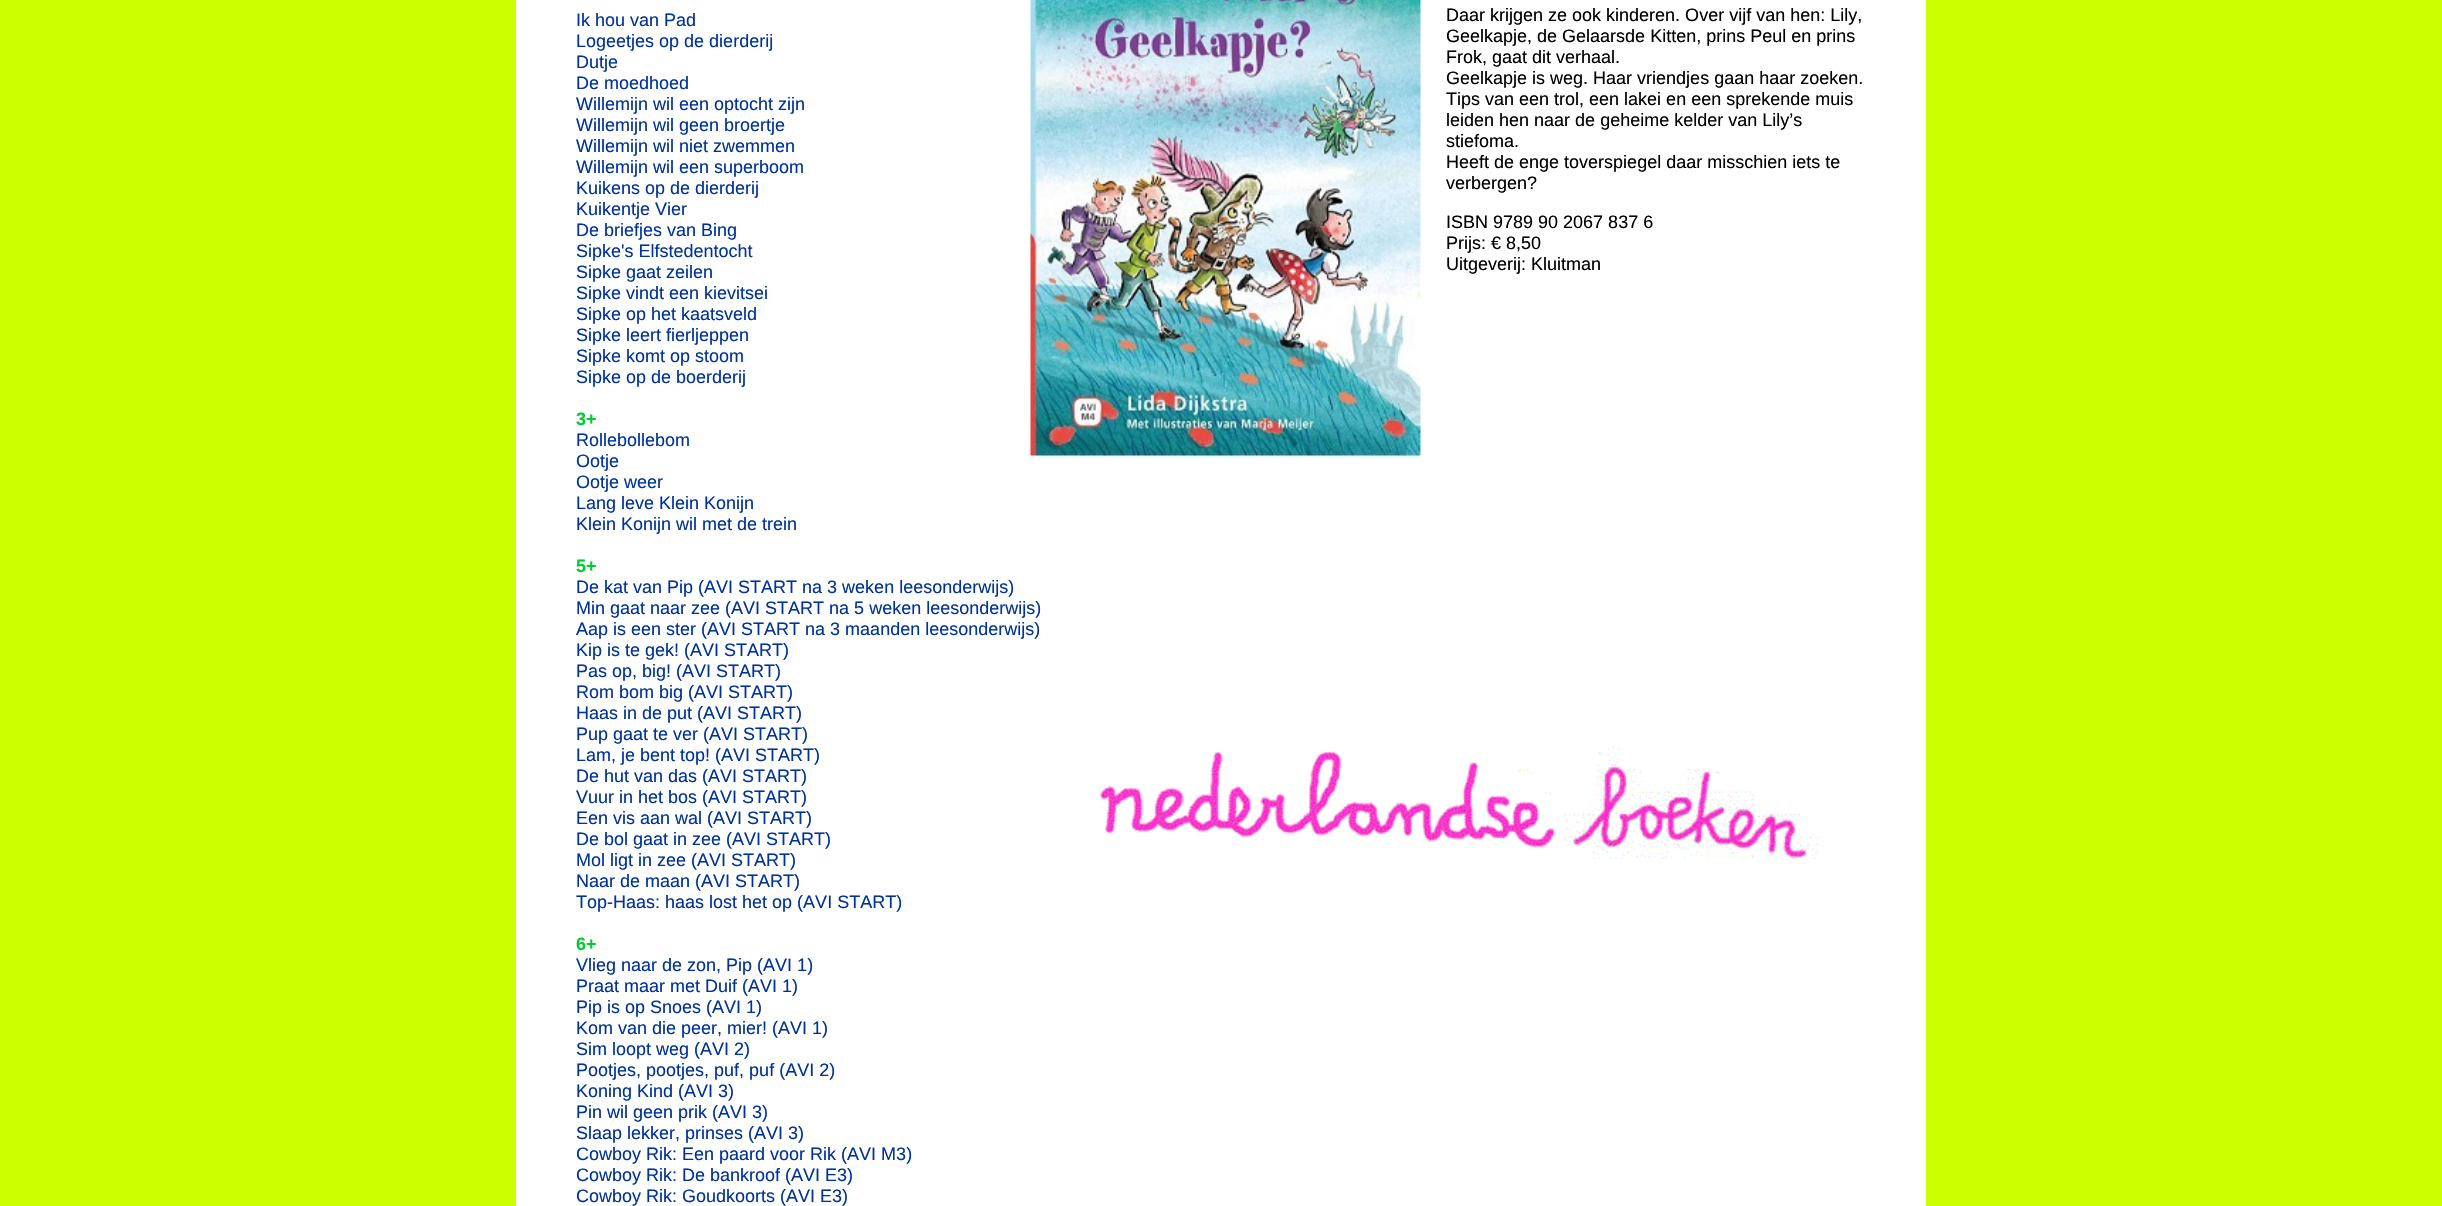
#include "include/core/SkBlurTypes.h"
#include "include/core/SkCanvas.h"
#include "include/core/SkData.h"
#include "include/core/SkFont.h"
#include "include/core/SkFontMgr.h"
#include "include/core/SkImage.h"
#include "include/core/SkMaskFilter.h"
#include "include/core/SkPaint.h"
#include "include/core/SkPathBuilder.h"
#include "include/core/SkTextBlob.h"
#include "include/effects/SkDashPathEffect.h"
#include "include/effects/SkGradientShader.h"
#include "include/utils/SkParsePath.h"

extern sk_sp<SkFontMgr> fontMgr;

void draw(SkCanvas* canvas) {
  SkPaint p;
  p.setAntiAlias(true);
  canvas->clear(SkColorSetRGB(204, 255, 0));
  canvas->drawImageRect(SkImages::DeferredFromEncodedData(SkData::MakeFromFileName("images/1.png")), SkRect::MakeLTRB(516, 0, 1926, 1206), SkSamplingOptions());
  canvas->drawImageRect(SkImages::DeferredFromEncodedData(SkData::MakeFromFileName("images/2.png")), SkRect::MakeLTRB(1030, 0, 1421, 460), SkSamplingOptions());
  SkFont font1(fontMgr->matchFamilyStyle("Liberation Sans", SkFontStyle::Normal()), 18);
  font1.setSubpixel(true);
  p.setColor(SkColorSetRGB(0, 51, 153));
  canvas->drawString("Ik hou van Pad", 576, 26, font1, p);
  canvas->drawString("Logeetjes op de dierderij", 576, 47, font1, p);
  canvas->drawString("Dutje", 576, 68, font1, p);
  canvas->drawString("De moedhoed", 576, 89, font1, p);
  canvas->drawString("Willemijn wil een optocht zijn", 576, 110, font1, p);
  canvas->drawString("Willemijn wil geen broertje", 576, 131, font1, p);
  canvas->drawString("Willemijn wil niet zwemmen", 576, 152, font1, p);
  canvas->drawString("Willemijn wil een superboom", 576, 173, font1, p);
  canvas->drawString("Kuikens op de dierderij", 576, 194, font1, p);
  canvas->drawString("Kuikentje Vier", 576, 215, font1, p);
  canvas->drawString("De briefjes van Bing", 576, 236, font1, p);
  canvas->drawString("Sipke's Elfstedentocht", 576, 257, font1, p);
  canvas->drawString("Sipke gaat zeilen", 576, 278, font1, p);
  canvas->drawString("Sipke vindt een kievitsei", 576, 299, font1, p);
  canvas->drawString("Sipke op het kaatsveld", 576, 320, font1, p);
  canvas->drawString("Sipke leert fierljeppen", 576, 341, font1, p);
  canvas->drawString("Sipke komt op stoom", 576, 362, font1, p);
  canvas->drawString("Sipke op de boerderij", 576, 383, font1, p);
  SkFont font2(fontMgr->matchFamilyStyle("Liberation Sans", SkFontStyle::Bold()), 18);
  font2.setSubpixel(true);
  p.setColor(SkColorSetRGB(0, 204, 51));
  canvas->drawString("3+", 576, 425, font2, p);
  p.setColor(SkColorSetRGB(0, 51, 153));
  canvas->drawString("Rollebollebom", 576, 446, font1, p);
  canvas->drawString("Ootje", 576, 467, font1, p);
  canvas->drawString("Ootje weer", 576, 488, font1, p);
  canvas->drawString("Lang leve Klein Konijn", 576, 509, font1, p);
  canvas->drawString("Klein Konijn wil met de trein", 576, 530, font1, p);
  p.setColor(SkColorSetRGB(0, 204, 51));
  canvas->drawString("5+", 576, 572, font2, p);
  p.setColor(SkColorSetRGB(0, 51, 153));
  canvas->drawString("De kat van Pip (AVI START na 3 weken leesonderwijs)", 576, 593, font1, p);
  canvas->drawString("Min gaat naar zee (AVI START na 5 weken leesonderwijs)", 576, 614, font1, p);
  canvas->drawString("Aap is een ster (AVI START na 3 maanden leesonderwijs)", 576, 635, font1, p);
  canvas->drawString("Kip is te gek! (AVI START)", 576, 656, font1, p);
  canvas->drawString("Pas op, big! (AVI START)", 576, 677, font1, p);
  canvas->drawString("Rom bom big (AVI START)", 576, 698, font1, p);
  canvas->drawString("Haas in de put (AVI START)", 576, 719, font1, p);
  canvas->drawString("Pup gaat te ver (AVI START)", 576, 740, font1, p);
  canvas->drawString("Lam, je bent top! (AVI START)", 576, 761, font1, p);
  canvas->drawString("De hut van das (AVI START)", 576, 782, font1, p);
  canvas->drawString("Vuur in het bos (AVI START)", 576, 803, font1, p);
  canvas->drawString("Een vis aan wal (AVI START)", 576, 824, font1, p);
  canvas->drawString("De bol gaat in zee (AVI START)", 576, 845, font1, p);
  canvas->drawString("Mol ligt in zee (AVI START)", 576, 866, font1, p);
  canvas->drawString("Naar de maan (AVI START)", 576, 887, font1, p);
  canvas->drawString("Top-Haas: haas lost het op (AVI START)", 576, 908, font1, p);
  p.setColor(SkColorSetRGB(0, 204, 51));
  canvas->drawString("6+", 576, 950, font2, p);
  p.setColor(SkColorSetRGB(0, 51, 153));
  canvas->drawString("Vlieg naar de zon, Pip (AVI 1)", 576, 971, font1, p);
  canvas->drawString("Praat maar met Duif (AVI 1)", 576, 992, font1, p);
  canvas->drawString("Pip is op Snoes (AVI 1)", 576, 1013, font1, p);
  canvas->drawString("Kom van die peer, mier! (AVI 1)", 576, 1034, font1, p);
  canvas->drawString("Sim loopt weg (AVI 2)", 576, 1055, font1, p);
  canvas->drawString("Pootjes, pootjes, puf, puf (AVI 2)", 576, 1076, font1, p);
  canvas->drawString("Koning Kind (AVI 3)", 576, 1097, font1, p);
  canvas->drawString("Pin wil geen prik (AVI 3)", 576, 1118, font1, p);
  canvas->drawString("Slaap lekker, prinses (AVI 3)", 576, 1139, font1, p);
  canvas->drawString("Cowboy Rik: Een paard voor Rik (AVI M3)", 576, 1160, font1, p);
  canvas->drawString("Cowboy Rik: De bankroof (AVI E3)", 576, 1181, font1, p);
  canvas->drawString("Cowboy Rik: Goudkoorts (AVI E3)", 576, 1202, font1, p);
  p.setColor(SK_ColorBLACK);
  canvas->drawString("Daar krijgen ze ook kinderen. Over vijf van hen: Lily,", 1446, 21, font1, p);
  canvas->drawString("Geelkapje, de Gelaarsde Kitten, prins Peul en prins", 1446, 42, font1, p);
  canvas->drawString("Frok, gaat dit verhaal.", 1446, 63, font1, p);
  canvas->drawString("Geelkapje is weg. Haar vriendjes gaan haar zoeken.", 1446, 84, font1, p);
  canvas->drawString("Tips van een trol, een lakei en een sprekende muis", 1446, 105, font1, p);
  canvas->drawString("leiden hen naar de geheime kelder van Lily’s", 1446, 126, font1, p);
  canvas->drawString("stiefoma.", 1446, 147, font1, p);
  canvas->drawString("Heeft de enge toverspiegel daar misschien iets te", 1446, 168, font1, p);
  canvas->drawString("verbergen?", 1446, 189, font1, p);
  canvas->drawString("ISBN 9789 90 2067 837 6", 1446, 228, font1, p);
  canvas->drawString("Prijs: € 8,50", 1446, 249, font1, p);
  canvas->drawString("Uitgeverij: Kluitman", 1446, 270, font1, p);
}
